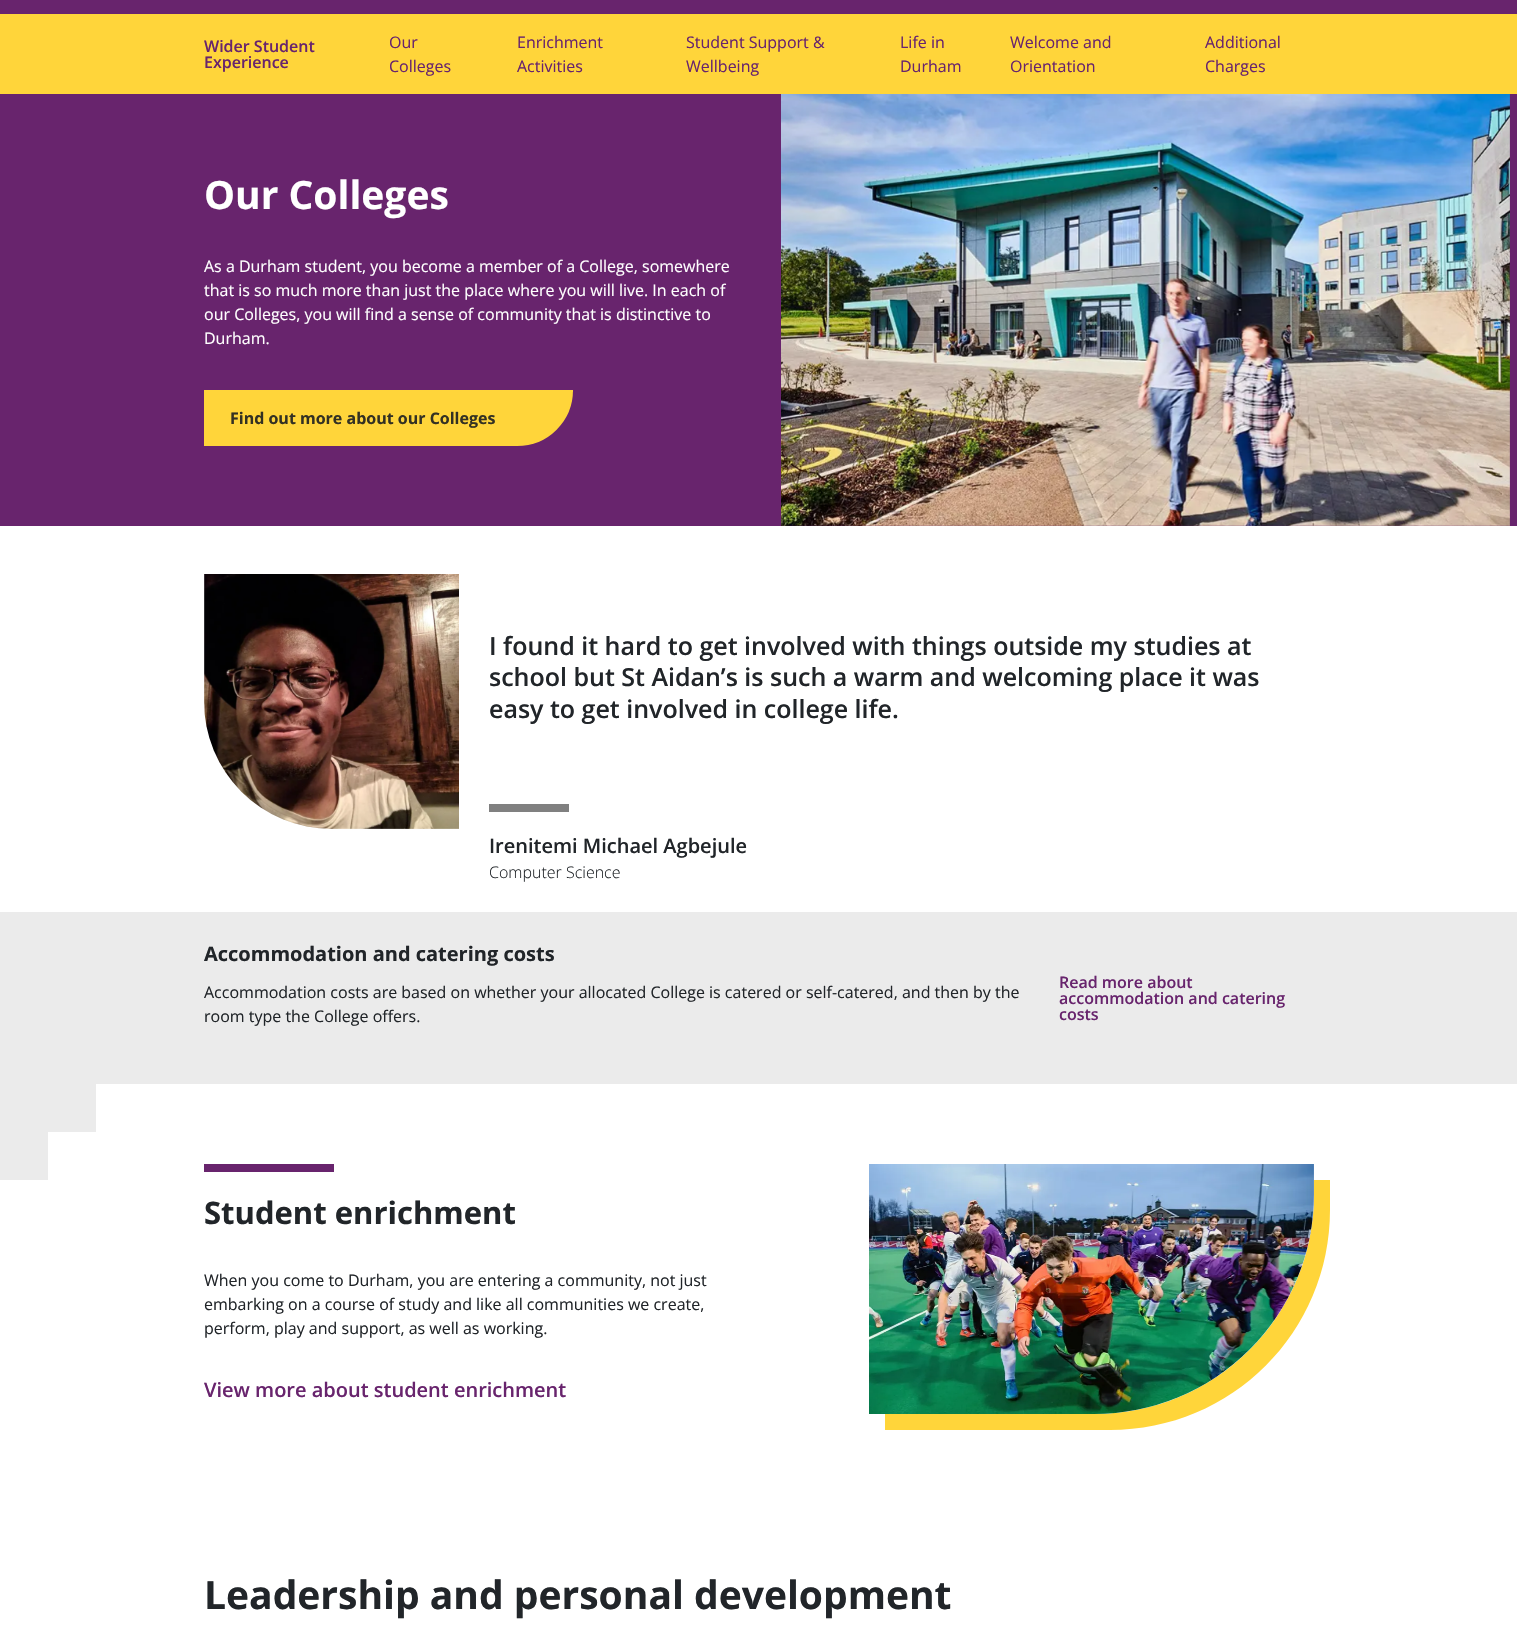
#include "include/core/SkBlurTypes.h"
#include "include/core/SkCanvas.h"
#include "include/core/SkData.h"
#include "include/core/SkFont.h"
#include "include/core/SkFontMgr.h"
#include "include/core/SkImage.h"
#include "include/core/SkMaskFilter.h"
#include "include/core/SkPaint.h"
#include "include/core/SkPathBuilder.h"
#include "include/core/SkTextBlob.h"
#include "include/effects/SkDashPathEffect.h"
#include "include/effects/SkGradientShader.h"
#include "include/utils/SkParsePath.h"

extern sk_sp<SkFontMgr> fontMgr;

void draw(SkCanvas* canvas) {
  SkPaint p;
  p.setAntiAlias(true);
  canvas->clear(SK_ColorWHITE);
  p.setColor(SkColorSetRGB(104, 36, 109));
  canvas->drawRect(SkRect::MakeLTRB(0, 0, 1517, 14), p);
  p.setColor(SkColorSetRGB(255, 213, 58));
  canvas->drawRect(SkRect::MakeLTRB(0, 14, 1517, 94), p);
  p.setColor(SkColorSetRGB(104, 36, 109));
  canvas->drawRect(SkRect::MakeLTRB(0, 94, 1517, 526), p);
  p.setColor(SkColorSetRGB(255, 213, 58));
  canvas->drawPath(SkPathBuilder().moveTo(205, 391).lineTo(572, 391).lineTo(572, 390).cubicTo(572, 420.5f, 547.5f, 445, 517, 445).lineTo(205, 445).close().detach(), p);
  p.setStyle(SkPaint::kStroke_Style);
  p.setStrokeWidth(2);
  canvas->drawPath(SkPathBuilder().moveTo(205, 391).lineTo(572, 391).lineTo(572, 390).cubicTo(572, 420.5f, 547.5f, 445, 517, 445).lineTo(205, 445).close().detach(), p);
  canvas->drawImageRect(SkImages::DeferredFromEncodedData(SkData::MakeFromFileName("images/1.png")), SkRect::MakeLTRB(781, 94, 1510, 526), SkSamplingOptions());
  canvas->drawImageRect(SkImages::DeferredFromEncodedData(SkData::MakeFromFileName("images/2.png")), SkRect::MakeLTRB(204, 574, 459, 829), SkSamplingOptions());
  p.setStyle(SkPaint::kFill_Style);
  p.setColor(SkColorSetRGB(128, 128, 128));
  canvas->drawRect(SkRect::MakeLTRB(489, 804, 569, 812), p);
  p.setColor(SkColorSetRGB(235, 235, 235));
  canvas->drawRect(SkRect::MakeLTRB(0, 912, 1517, 1084), p);
  canvas->drawRect(SkRect::MakeLTRB(0, 1084, 96, 1132), p);
  canvas->drawRect(SkRect::MakeLTRB(0, 1132, 48, 1180), p);
  p.setColor(SkColorSetRGB(104, 36, 109));
  canvas->drawRect(SkRect::MakeLTRB(204, 1164, 334, 1172), p);
  p.setColor(SkColorSetRGB(255, 213, 58));
  canvas->drawPath(SkPathBuilder().moveTo(885, 1414).lineTo(885, 1430).lineTo(1110, 1430).cubicTo(1232, 1430, 1330, 1332, 1330, 1210).lineTo(1330, 1180).lineTo(1314, 1180).lineTo(1314, 1194).cubicTo(1314, 1316, 1216, 1414, 1094, 1414).close().detach(), p);
  p.setColor(SkColorSetRGB(235, 235, 235));
  canvas->drawPath(SkPathBuilder().moveTo(869, 1164).lineTo(1314, 1164).lineTo(1314, 1194).cubicTo(1314, 1315.5f, 1215.5f, 1414, 1094, 1414).lineTo(869, 1414).close().detach(), p);
  canvas->drawImageRect(SkImages::DeferredFromEncodedData(SkData::MakeFromFileName("images/3.png")), SkRect::MakeLTRB(869, 1164, 1314, 1414), SkSamplingOptions());
  SkFont font1(fontMgr->matchFamilyStyle("Open Sans", SkFontStyle(600, SkFontStyle::kNormal_Width, SkFontStyle::kUpright_Slant)), 16);
  font1.setSubpixel(true);
  p.setColor(SkColorSetRGB(104, 36, 109));
  canvas->drawString("Wider Student", 204, 52, font1, p);
  canvas->drawString("Experience", 204, 68, font1, p);
  SkFont font2(fontMgr->matchFamilyStyle("Open Sans", SkFontStyle::Normal()), 16);
  font2.setSubpixel(true);
  canvas->drawString("Our", 389, 48, font2, p);
  canvas->drawString("Colleges", 389, 72, font2, p);
  canvas->drawString("Enrichment", 517, 48, font2, p);
  canvas->drawString("Activities", 517, 72, font2, p);
  canvas->drawString("Student Support &", 686, 48, font2, p);
  canvas->drawString("Wellbeing", 686, 72, font2, p);
  canvas->drawString("Life in", 900, 48, font2, p);
  canvas->drawString("Durham", 900, 72, font2, p);
  canvas->drawString("Welcome and", 1010, 48, font2, p);
  canvas->drawString("Orientation", 1010, 72, font2, p);
  canvas->drawString("Additional", 1205, 48, font2, p);
  canvas->drawString("Charges", 1205, 72, font2, p);
  SkFont font3(fontMgr->matchFamilyStyle("Open Sans", SkFontStyle::Bold()), 39);
  font3.setSubpixel(true);
  p.setColor(SK_ColorWHITE);
  canvas->drawString("Our Colleges", 204, 209, font3, p);
  canvas->drawString("As a Durham student, you become a member of a College, somewhere", 204, 272, font2, p);
  canvas->drawString("that is so much more than just the place where you will live. In each of", 204, 296, font2, p);
  canvas->drawString("our Colleges, you will find a sense of community that is distinctive to", 204, 320, font2, p);
  canvas->drawString("Durham.", 204, 344, font2, p);
  SkFont font4(fontMgr->matchFamilyStyle("Open Sans", SkFontStyle::Bold()), 16);
  font4.setSubpixel(true);
  p.setColor(SkColorSetRGB(51, 49, 35));
  canvas->drawString("Find out more about our Colleges", 230, 424, font4, p);
  SkFont font5(fontMgr->matchFamilyStyle("Open Sans", SkFontStyle(600, SkFontStyle::kNormal_Width, SkFontStyle::kUpright_Slant)), 25);
  font5.setSubpixel(true);
  p.setColor(SkColorSetRGB(33, 37, 41));
  canvas->drawString("I found it hard to get involved with things outside my studies at", 489, 655, font5, p);
  canvas->drawString("school but St Aidan’s is such a warm and welcoming place it was", 489, 686, font5, p);
  canvas->drawString("easy to get involved in college life.", 489, 718, font5, p);
  SkFont font6(fontMgr->matchFamilyStyle("Open Sans", SkFontStyle(600, SkFontStyle::kNormal_Width, SkFontStyle::kUpright_Slant)), 20);
  font6.setSubpixel(true);
  canvas->drawString("Irenitemi Michael Agbejule", 489, 853, font6, p);
  SkFont font7(fontMgr->matchFamilyStyle("Open Sans", SkFontStyle(300, SkFontStyle::kNormal_Width, SkFontStyle::kUpright_Slant)), 16);
  font7.setSubpixel(true);
  canvas->drawString("Computer Science", 489, 878, font7, p);
  SkFont font8(fontMgr->matchFamilyStyle("Open Sans", SkFontStyle::Bold()), 20);
  font8.setSubpixel(true);
  canvas->drawString("Accommodation and catering costs", 204, 961, font8, p);
  canvas->drawString("Accommodation costs are based on whether your allocated College is catered or self-catered, and then by the", 204, 998, font2, p);
  canvas->drawString("room type the College offers.", 204, 1022, font2, p);
  p.setColor(SkColorSetRGB(104, 36, 109));
  canvas->drawString("Read more about", 1059, 988, font1, p);
  canvas->drawString("accommodation and catering", 1059, 1004, font1, p);
  canvas->drawString("costs", 1059, 1020, font1, p);
  SkFont font9(fontMgr->matchFamilyStyle("Open Sans", SkFontStyle::Bold()), 31);
  font9.setSubpixel(true);
  p.setColor(SkColorSetRGB(33, 37, 41));
  canvas->drawString("Student enrichment", 204, 1224, font9, p);
  canvas->drawString("When you come to Durham, you are entering a community, not just", 204, 1286, font2, p);
  canvas->drawString("embarking on a course of study and like all communities we create,", 204, 1310, font2, p);
  canvas->drawString("perform, play and support, as well as working.", 204, 1334, font2, p);
  p.setColor(SkColorSetRGB(104, 36, 109));
  canvas->drawString("View more about student enrichment", 204, 1397, font6, p);
  p.setColor(SkColorSetRGB(33, 37, 41));
  canvas->drawString("Leadership and personal development", 204, 1609, font3, p);
}
